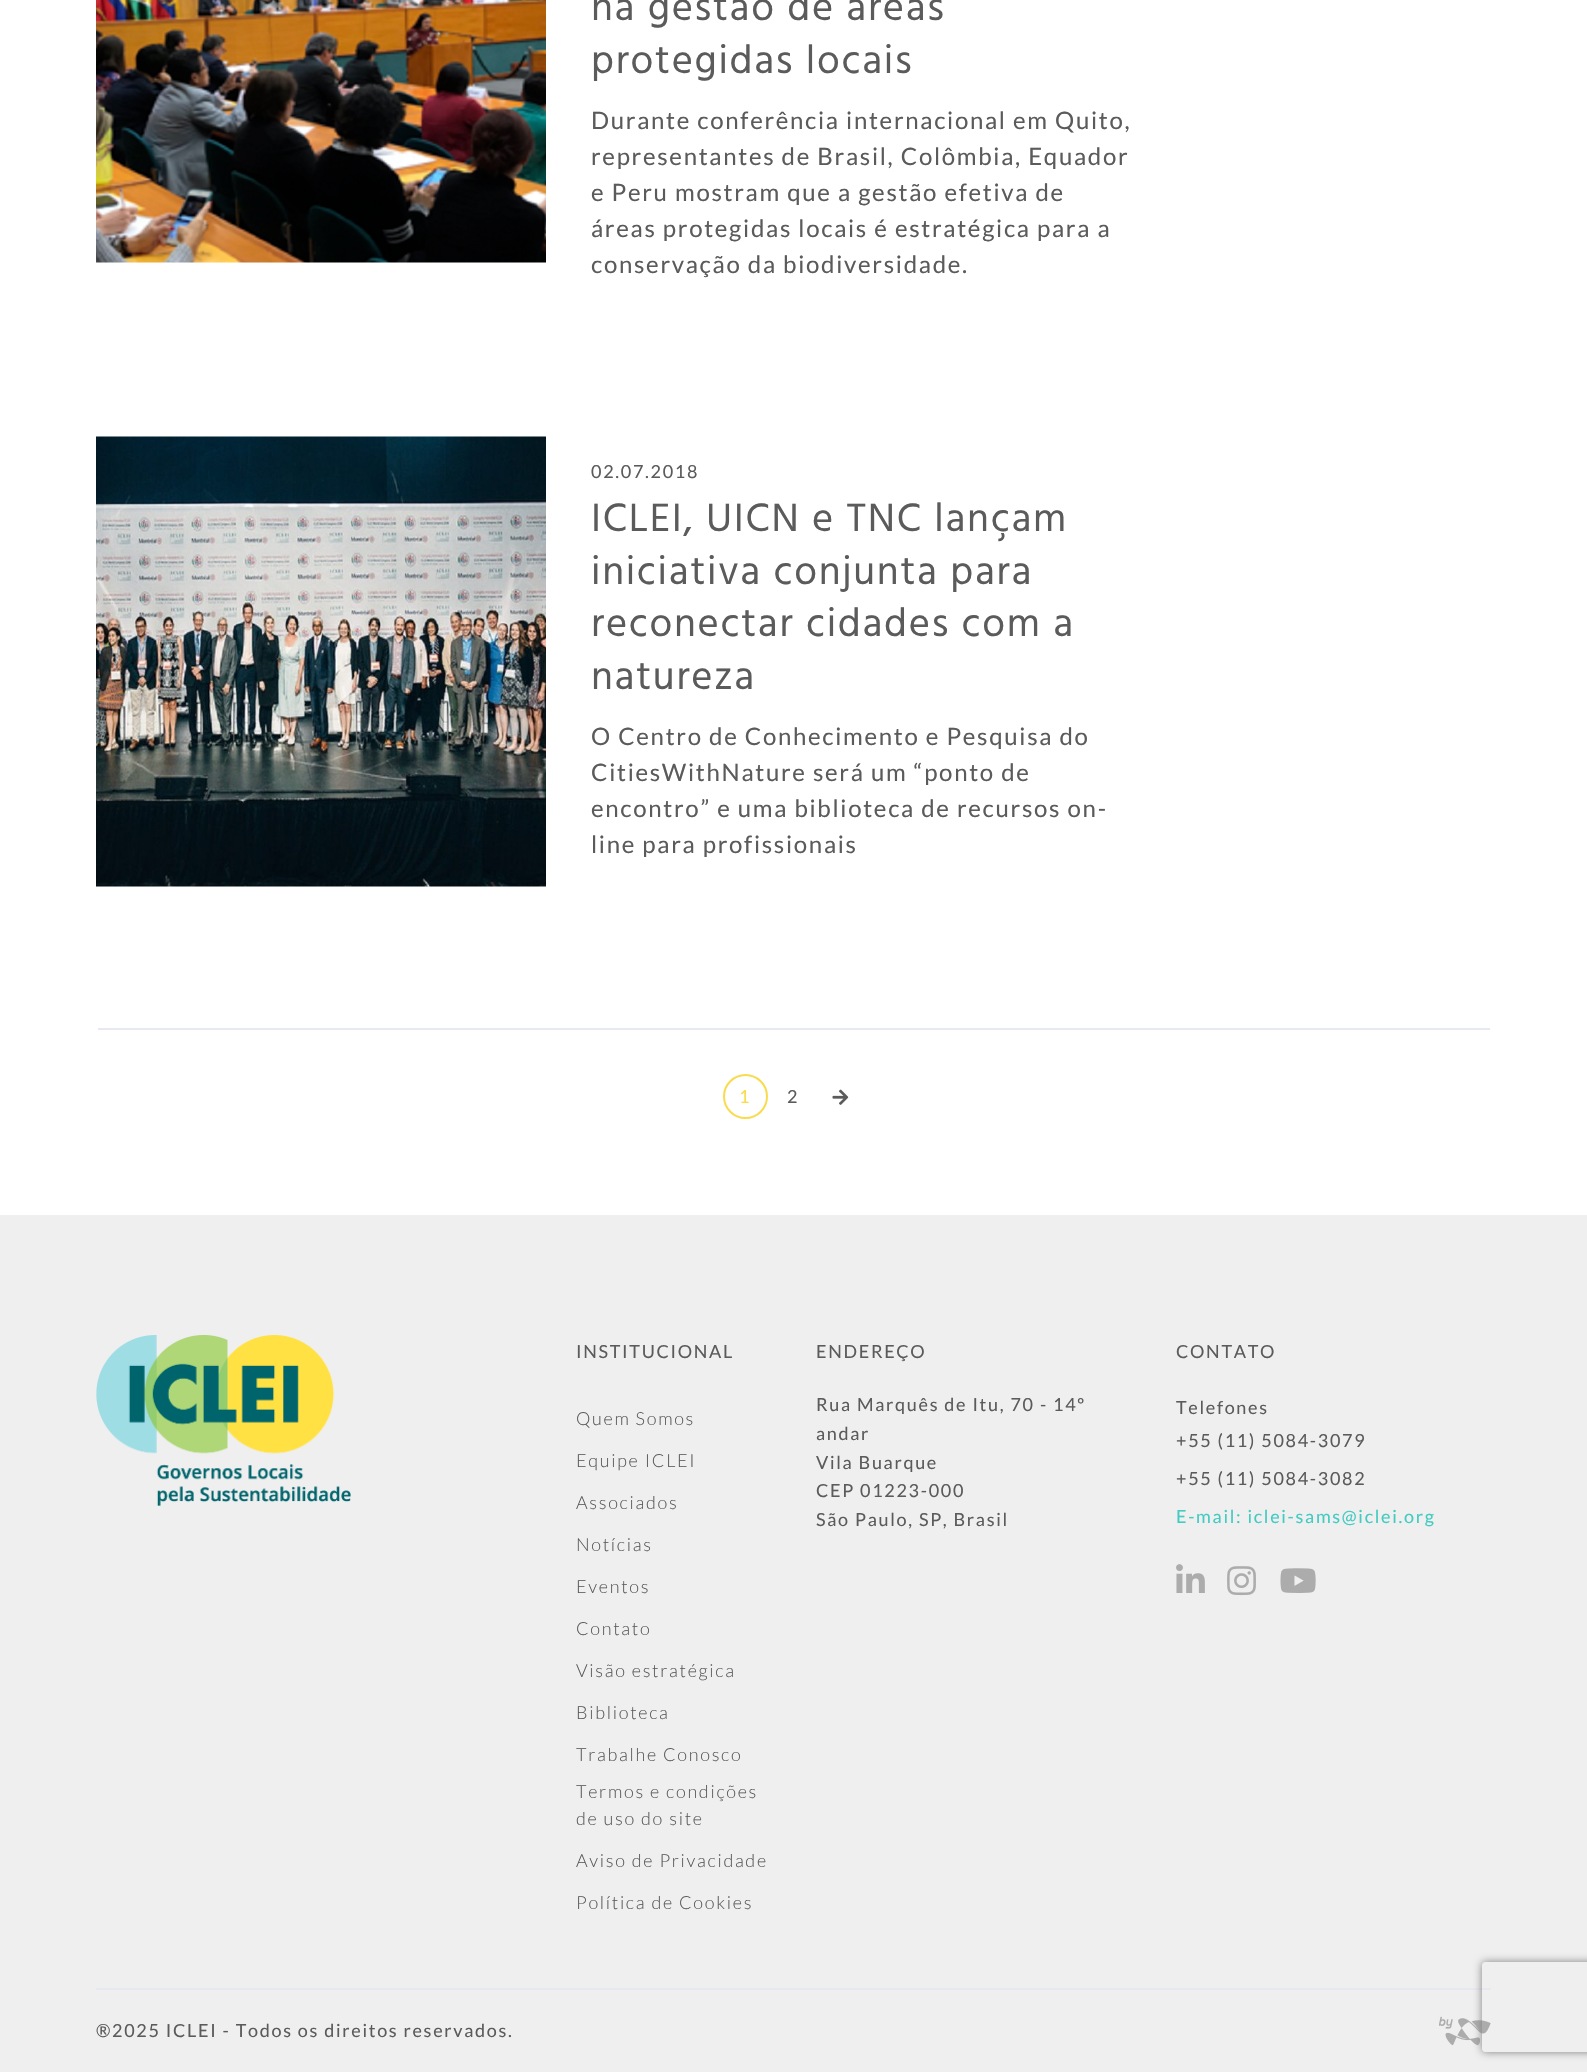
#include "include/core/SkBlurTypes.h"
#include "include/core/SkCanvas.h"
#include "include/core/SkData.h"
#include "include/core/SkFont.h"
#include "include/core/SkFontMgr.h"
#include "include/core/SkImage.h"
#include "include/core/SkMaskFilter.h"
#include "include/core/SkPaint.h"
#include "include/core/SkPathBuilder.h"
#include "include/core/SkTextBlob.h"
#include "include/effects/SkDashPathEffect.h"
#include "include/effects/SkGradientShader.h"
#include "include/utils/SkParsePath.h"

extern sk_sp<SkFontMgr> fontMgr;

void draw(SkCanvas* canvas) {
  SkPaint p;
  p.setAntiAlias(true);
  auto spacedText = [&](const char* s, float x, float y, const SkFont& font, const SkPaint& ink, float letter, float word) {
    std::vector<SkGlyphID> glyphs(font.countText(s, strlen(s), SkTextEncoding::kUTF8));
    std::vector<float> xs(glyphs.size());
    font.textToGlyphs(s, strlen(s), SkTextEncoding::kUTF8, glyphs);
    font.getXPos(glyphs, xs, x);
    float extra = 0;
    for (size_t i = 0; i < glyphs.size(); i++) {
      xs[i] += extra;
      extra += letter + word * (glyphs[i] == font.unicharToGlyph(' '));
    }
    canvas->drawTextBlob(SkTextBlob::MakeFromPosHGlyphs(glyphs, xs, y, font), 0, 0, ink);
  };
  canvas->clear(SK_ColorWHITE);
  canvas->drawImageRect(SkImages::DeferredFromEncodedData(SkData::MakeFromFileName("images/1.png")), SkRect::MakeLTRB(96, 0, 546, 263), SkSamplingOptions());
  canvas->drawImageRect(SkImages::DeferredFromEncodedData(SkData::MakeFromFileName("images/2.png")), SkRect::MakeLTRB(96, 436, 546, 887), SkSamplingOptions());
  p.setColor(SkColorSetRGB(231, 233, 240));
  canvas->drawRect(SkRect::MakeLTRB(98, 1028, 1490, 1030), p);
  p.setStyle(SkPaint::kStroke_Style);
  p.setStrokeWidth(2);
  p.setColor(SkColorSetRGB(249, 220, 78));
  canvas->drawCircle(745.5f, 1096.5f, 21.5f, p);
  canvas->drawImageRect(SkImages::DeferredFromEncodedData(SkData::MakeFromFileName("images/3.png")), SkRect::MakeLTRB(832, 1089, 849, 1105), SkSamplingOptions());
  p.setStyle(SkPaint::kFill_Style);
  p.setColor(SkColorSetRGB(239, 239, 239));
  canvas->drawRect(SkRect::MakeLTRB(0, 1215, 1587, 2072), p);
  canvas->drawImageRect(SkImages::DeferredFromEncodedData(SkData::MakeFromFileName("images/4.png")), SkRect::MakeLTRB(96, 1335, 351, 1506), SkSamplingOptions());
  canvas->drawImageRect(SkImages::DeferredFromEncodedData(SkData::MakeFromFileName("images/5.png")), SkRect::MakeLTRB(1176, 1564, 1205, 1593), SkSamplingOptions());
  canvas->drawImageRect(SkImages::DeferredFromEncodedData(SkData::MakeFromFileName("images/6.png")), SkRect::MakeLTRB(1227, 1566, 1256, 1596), SkSamplingOptions());
  canvas->drawImageRect(SkImages::DeferredFromEncodedData(SkData::MakeFromFileName("images/7.png")), SkRect::MakeLTRB(1280, 1568, 1316, 1593), SkSamplingOptions());
  p.setColor(SkColorSetRGB(231, 233, 240));
  canvas->drawRect(SkRect::MakeLTRB(96, 1988, 1491, 1990), p);
  canvas->drawImageRect(SkImages::DeferredFromEncodedData(SkData::MakeFromFileName("images/8.png")), SkRect::MakeLTRB(1439, 2016, 1491, 2046), SkSamplingOptions());
  canvas->save();
  canvas->clipPath(SkPathBuilder(SkPathFillType::kEvenOdd).moveTo(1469, 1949).lineTo(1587, 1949).lineTo(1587, 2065).lineTo(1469, 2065).close().moveTo(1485, 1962).lineTo(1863, 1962).cubicTo(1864.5f, 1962, 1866, 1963.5f, 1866, 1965).lineTo(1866, 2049).cubicTo(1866, 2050.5f, 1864.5f, 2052, 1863, 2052).lineTo(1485, 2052).cubicTo(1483.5f, 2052, 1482, 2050.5f, 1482, 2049).lineTo(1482, 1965).cubicTo(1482, 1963.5f, 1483.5f, 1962, 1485, 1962).close().detach(), true);
  p.setColor(SkColorSetRGB(128, 128, 128));
  p.setMaskFilter(SkMaskFilter::MakeBlur(kNormal_SkBlurStyle, 4));
  canvas->drawRoundRect(SkRect::MakeLTRB(1482, 1962, 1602, 2052), 3, 3, p);
  p.setMaskFilter(nullptr);
  canvas->restore();
  SkFont font1(fontMgr->matchFamilyStyle("Hind", SkFontStyle::Normal()), 40.5f);
  font1.setSubpixel(true);
  p.setColor(SkColorSetRGB(91, 91, 91));
  spacedText("na gestão de áreas", 591, 20, font1, p, 1.7f, 0);
  spacedText("protegidas locais", 591, 73, font1, p, 1.7f, 0);
  SkFont font2(fontMgr->matchFamilyStyle("Lato", SkFontStyle::Normal()), 24);
  font2.setSubpixel(true);
  spacedText("Durante conferência internacional em Quito,", 591, 129, font2, p, 1.7f, 0);
  spacedText("representantes de Brasil, Colômbia, Equador", 591, 165, font2, p, 1.7f, 0);
  spacedText("e Peru mostram que a gestão efetiva de", 591, 201, font2, p, 1.7f, 0);
  spacedText("áreas protegidas locais é estratégica para a", 591, 237, font2, p, 1.7f, 0);
  spacedText("conservação da biodiversidade.", 591, 273, font2, p, 1.7f, 0);
  SkFont font3(fontMgr->matchFamilyStyle("Lato", SkFontStyle::Normal()), 18);
  font3.setSubpixel(true);
  spacedText("02.07.2018", 591, 478, font3, p, 1.7f, 0);
  spacedText("ICLEI, UICN e TNC lançam", 591, 531, font1, p, 1.7f, 0);
  spacedText("iniciativa conjunta para", 591, 584, font1, p, 1.7f, 0);
  spacedText("reconectar cidades com a", 591, 636, font1, p, 1.7f, 0);
  spacedText("natureza", 591, 689, font1, p, 1.7f, 0);
  spacedText("O Centro de Conhecimento e Pesquisa do", 591, 745, font2, p, 1.7f, 0);
  spacedText("CitiesWithNature será um “ponto de", 591, 781, font2, p, 1.7f, 0);
  spacedText("encontro” e uma biblioteca de recursos on-", 591, 817, font2, p, 1.7f, 0);
  spacedText("line para profissionais", 591, 853, font2, p, 1.7f, 0);
  p.setColor(SkColorSetRGB(249, 220, 78));
  spacedText("1", 739, 1103, font3, p, 1.7f, 0);
  p.setColor(SkColorSetRGB(91, 91, 91));
  spacedText("2", 787, 1103, font3, p, 1.7f, 0);
  spacedText("INSTITUCIONAL", 576, 1358, font3, p, 1.7f, 0);
  SkFont font4(fontMgr->matchFamilyStyle("Lato", SkFontStyle(300, SkFontStyle::kNormal_Width, SkFontStyle::kUpright_Slant)), 18);
  font4.setSubpixel(true);
  spacedText("Quem Somos", 576, 1425, font4, p, 1.7f, 0);
  spacedText("Equipe ICLEI", 576, 1467, font4, p, 1.7f, 0);
  spacedText("Associados", 576, 1509, font4, p, 1.7f, 0);
  spacedText("Notícias", 576, 1551, font4, p, 1.7f, 0);
  spacedText("Eventos", 576, 1593, font4, p, 1.7f, 0);
  spacedText("Contato", 576, 1635, font4, p, 1.7f, 0);
  spacedText("Visão estratégica", 576, 1677, font4, p, 1.7f, 0);
  spacedText("Biblioteca", 576, 1719, font4, p, 1.7f, 0);
  spacedText("Trabalhe Conosco", 576, 1761, font4, p, 1.7f, 0);
  spacedText("Termos e condições", 576, 1798, font4, p, 1.7f, 0);
  spacedText("de uso do site", 576, 1825, font4, p, 1.7f, 0);
  spacedText("Aviso de Privacidade", 576, 1867, font4, p, 1.7f, 0);
  spacedText("Política de Cookies", 576, 1909, font4, p, 1.7f, 0);
  spacedText("ENDEREÇO", 816, 1358, font3, p, 1.7f, 0);
  spacedText("Rua Marquês de Itu, 70 - 14º", 816, 1411, font3, p, 1.7f, 0);
  spacedText("andar", 816, 1440, font3, p, 1.7f, 0);
  spacedText("Vila Buarque", 816, 1469, font3, p, 1.7f, 0);
  spacedText("CEP 01223-000", 816, 1497, font3, p, 1.7f, 0);
  spacedText("São Paulo, SP, Brasil", 816, 1526, font3, p, 1.7f, 0);
  spacedText("CONTATO", 1176, 1358, font3, p, 1.7f, 0);
  spacedText("Telefones", 1176, 1414, font3, p, 1.7f, 0);
  spacedText("+55 (11) 5084-3079", 1176, 1447, font3, p, 1.7f, 0);
  spacedText("+55 (11) 5084-3082", 1176, 1485, font3, p, 1.7f, 0);
  p.setColor(SkColorSetRGB(67, 203, 194));
  spacedText("E-mail: iclei-sams@iclei.org", 1176, 1523, font3, p, 1.7f, 0);
  p.setColor(SkColorSetRGB(91, 91, 91));
  spacedText("®2025 ICLEI - Todos os direitos reservados.", 96, 2037, font3, p, 1.7f, 0);
}
